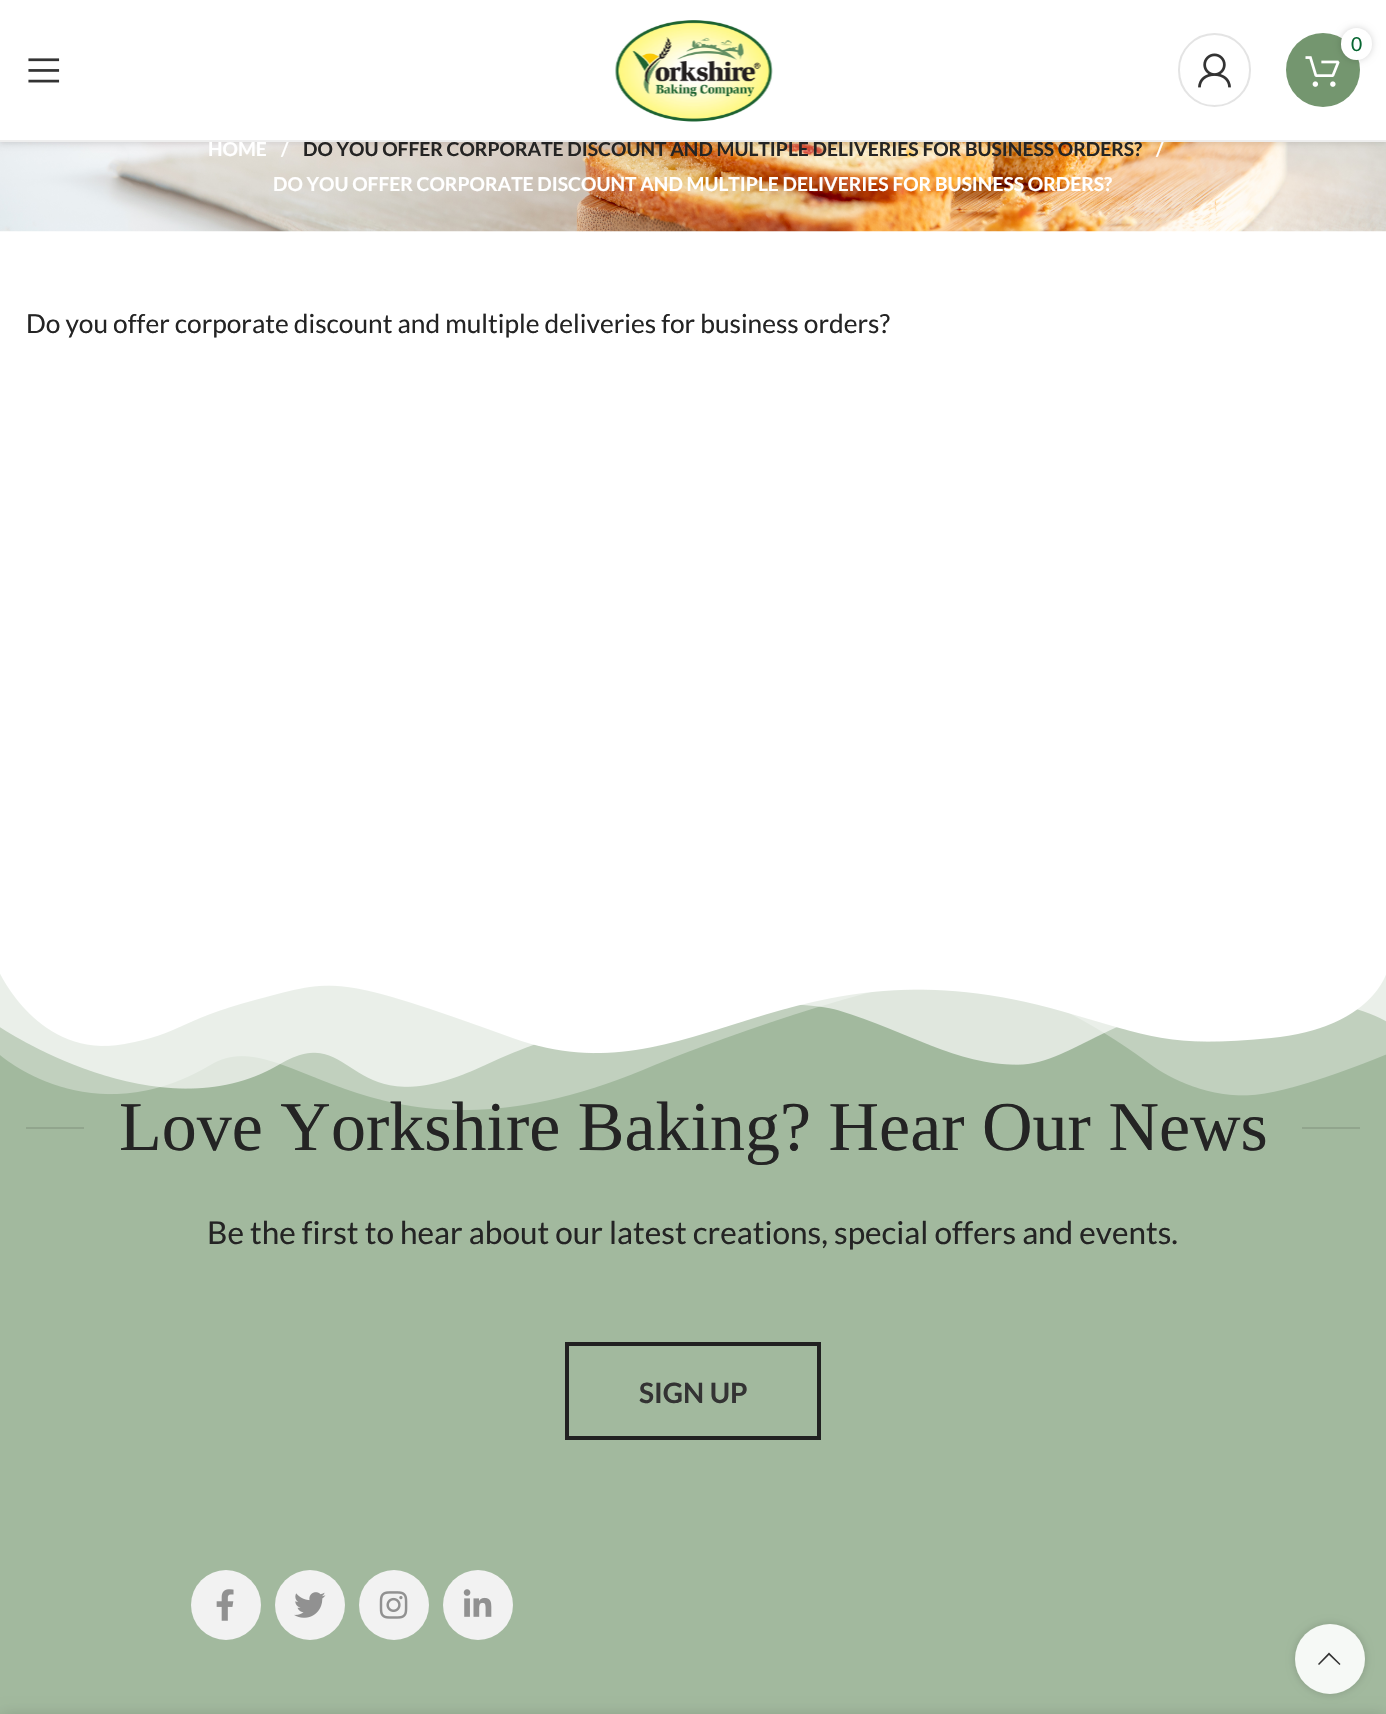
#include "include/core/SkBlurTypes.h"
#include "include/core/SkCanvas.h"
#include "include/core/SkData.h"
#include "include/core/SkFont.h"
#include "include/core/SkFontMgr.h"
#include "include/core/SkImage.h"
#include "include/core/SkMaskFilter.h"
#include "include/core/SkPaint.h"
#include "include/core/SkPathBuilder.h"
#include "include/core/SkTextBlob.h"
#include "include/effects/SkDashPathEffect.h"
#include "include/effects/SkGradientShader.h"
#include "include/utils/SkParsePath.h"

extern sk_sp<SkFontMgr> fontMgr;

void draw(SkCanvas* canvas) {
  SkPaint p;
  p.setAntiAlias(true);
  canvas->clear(SK_ColorWHITE);
  canvas->drawImageRect(SkImages::DeferredFromEncodedData(SkData::MakeFromFileName("images/5.png")), SkRect::MakeLTRB(0, 142, 1386, 232), SkSamplingOptions());
  p.setColor(SkColorSetARGB(26, 0, 0, 0));
  p.setMaskFilter(SkMaskFilter::MakeBlur(kNormal_SkBlurStyle, 2.5f));
  canvas->drawRect(SkRect::MakeLTRB(0, 2, 1386, 144), p);
  p.setMaskFilter(nullptr);
  p.setColor(SK_ColorWHITE);
  canvas->drawRect(SkRect::MakeLTRB(0, 0, 1386, 140), p);
  canvas->drawImageRect(SkImages::DeferredFromEncodedData(SkData::MakeFromFileName("images/1.png")), SkRect::MakeLTRB(615, 20, 773, 122), SkSamplingOptions());
  p.setStyle(SkPaint::kStroke_Style);
  p.setStrokeWidth(2);
  p.setColor(SkColorSetRGB(228, 228, 228));
  canvas->drawRoundRect(SkRect::MakeLTRB(1179, 34, 1250, 106), 35.5f, 35.5f, p);
  canvas->drawImageRect(SkImages::DeferredFromEncodedData(SkData::MakeFromFileName("images/2.png")), SkRect::MakeLTRB(1198, 53, 1231, 88), SkSamplingOptions());
  p.setStyle(SkPaint::kFill_Style);
  p.setColor(SkColorSetRGB(116, 150, 111));
  canvas->drawCircle(1323, 70, 37, p);
  canvas->drawImageRect(SkImages::DeferredFromEncodedData(SkData::MakeFromFileName("images/3.png")), SkRect::MakeLTRB(1305, 56, 1340, 87), SkSamplingOptions());
  p.setColor(SkColorSetARGB(43, 0, 0, 0));
  p.setMaskFilter(SkMaskFilter::MakeBlur(kNormal_SkBlurStyle, 3.5f));
  canvas->drawRoundRect(SkRect::MakeLTRB(1341, 28, 1372, 60), 15.5f, 15.5f, p);
  p.setMaskFilter(nullptr);
  p.setColor(SK_ColorWHITE);
  canvas->drawRoundRect(SkRect::MakeLTRB(1341, 28, 1372, 60), 15.5f, 15.5f, p);
  canvas->drawImageRect(SkImages::DeferredFromEncodedData(SkData::MakeFromFileName("images/4.png")), SkRect::MakeLTRB(28, 58, 60, 83), SkSamplingOptions());
  p.setColor(SkColorSetRGB(162, 185, 158));
  canvas->drawRect(SkRect::MakeLTRB(0, 973, 1386, 1714), p);
  canvas->drawImageRect(SkImages::DeferredFromEncodedData(SkData::MakeFromFileName("images/6.png")), SkRect::MakeLTRB(0, 973, 1386, 1110), SkSamplingOptions());
  p.setColor(SkColorSetRGB(145, 165, 141));
  canvas->drawRect(SkRect::MakeLTRB(26, 1127, 84, 1129), p);
  canvas->drawRect(SkRect::MakeLTRB(1302, 1127, 1360, 1129), p);
  p.setStyle(SkPaint::kStroke_Style);
  p.setStrokeWidth(4);
  p.setColor(SkColorSetRGB(33, 33, 33));
  canvas->drawRect(SkRect::MakeLTRB(567, 1344, 819, 1438), p);
  p.setStyle(SkPaint::kFill_Style);
  p.setColor(SkColorSetRGB(242, 242, 242));
  canvas->drawCircle(226, 1605, 35, p);
  canvas->drawImageRect(SkImages::DeferredFromEncodedData(SkData::MakeFromFileName("images/7.png")), SkRect::MakeLTRB(216, 1589, 234, 1621), SkSamplingOptions());
  canvas->drawCircle(310, 1605, 35, p);
  canvas->drawImageRect(SkImages::DeferredFromEncodedData(SkData::MakeFromFileName("images/8.png")), SkRect::MakeLTRB(294, 1592, 326, 1618), SkSamplingOptions());
  canvas->drawCircle(394, 1605, 35, p);
  canvas->drawImageRect(SkImages::DeferredFromEncodedData(SkData::MakeFromFileName("images/9.png")), SkRect::MakeLTRB(379, 1591, 408, 1619), SkSamplingOptions());
  canvas->drawCircle(478, 1605, 35, p);
  canvas->drawImageRect(SkImages::DeferredFromEncodedData(SkData::MakeFromFileName("images/10.png")), SkRect::MakeLTRB(463, 1589, 492, 1617), SkSamplingOptions());
  canvas->save();
  canvas->clipPath(SkPathBuilder(SkPathFillType::kEvenOdd).moveTo(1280, 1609).lineTo(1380, 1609).lineTo(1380, 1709).lineTo(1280, 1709).close().moveTo(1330, 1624).cubicTo(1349.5f, 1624, 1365, 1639.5f, 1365, 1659).cubicTo(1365, 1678.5f, 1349.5f, 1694, 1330, 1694).cubicTo(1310.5f, 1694, 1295, 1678.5f, 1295, 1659).cubicTo(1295, 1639.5f, 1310.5f, 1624, 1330, 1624).close().detach(), true);
  p.setColor(SkColorSetARGB(43, 0, 0, 0));
  p.setMaskFilter(SkMaskFilter::MakeBlur(kNormal_SkBlurStyle, 4.5f));
  canvas->drawRoundRect(SkRect::MakeLTRB(1295, 1624, 1365, 1694), 35, 35, p);
  p.setMaskFilter(nullptr);
  canvas->restore();
  p.setColor(SkColorSetARGB(230, 255, 255, 255));
  canvas->drawCircle(1330, 1659, 35, p);
  p.setColor(SkColorSetRGB(51, 51, 51));
  canvas->drawPath(SkPathBuilder().moveTo(1339.5f, 1665).lineTo(1340.5f, 1664).lineTo(1329, 1652.5f).lineTo(1318, 1664).lineTo(1319, 1665).lineTo(1329, 1655).close().detach(), p);
  p.setColor(SkColorSetARGB(36, 0, 0, 0));
  p.setMaskFilter(SkMaskFilter::MakeBlur(kNormal_SkBlurStyle, 8));
  canvas->drawRect(SkRect::MakeLTRB(0, 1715, 1386, 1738), p);
  p.setMaskFilter(nullptr);
  SkFont font1(fontMgr->matchFamilyStyle("Lato", SkFontStyle::Normal()), 19.25f);
  font1.setSubpixel(true);
  p.setColor(SkColorSetRGB(7, 102, 49));
  canvas->drawString("0", 1351, 51, font1, p);
  SkFont font2(fontMgr->matchFamilyStyle("Lato", SkFontStyle::Bold()), 19.25f);
  font2.setSubpixel(true);
  p.setColor(SK_ColorWHITE);
  canvas->drawString("HOME", 208, 156, font2, p);
  canvas->drawString("/", 281, 156, font2, p);
  p.setColor(SkColorSetRGB(36, 36, 36));
  canvas->drawString("DO YOU OFFER CORPORATE DISCOUNT AND MULTIPLE DELIVERIES FOR BUSINESS ORDERS?", 303, 156, font2, p);
  p.setColor(SK_ColorWHITE);
  canvas->drawString("/", 1156, 156, font2, p);
  p.setColor(SkColorSetRGB(238, 238, 238));
  canvas->drawRect(SkRect::MakeLTRB(0, 140, 1386, 142), p);
  p.setColor(SK_ColorWHITE);
  canvas->drawString("DO YOU OFFER CORPORATE DISCOUNT AND MULTIPLE DELIVERIES FOR BUSINESS ORDERS?", 273, 191, font2, p);
  SkFont font3(fontMgr->matchFamilyStyle("Lato", SkFontStyle::Normal()), 26.25f);
  font3.setSubpixel(true);
  p.setColor(SkColorSetRGB(36, 36, 36));
  canvas->drawString("Do you offer corporate discount and multiple deliveries for business orders?", 26, 333, font3, p);
  SkFont font4(fontMgr->matchFamilyStyle("Liberation Serif", SkFontStyle::Normal()), 70);
  font4.setSubpixel(true);
  canvas->drawString("Love Yorkshire Baking? Hear Our News", 119, 1150, font4, p);
  SkFont font5(fontMgr->matchFamilyStyle("Lato", SkFontStyle::Normal()), 31.5f);
  font5.setSubpixel(true);
  canvas->drawString("Be the first to hear about our latest creations, special offers and events.", 207, 1244, font5, p);
  SkFont font6(fontMgr->matchFamilyStyle("Lato", SkFontStyle::Bold()), 28);
  font6.setSubpixel(true);
  p.setColor(SkColorSetRGB(51, 51, 51));
  canvas->drawString("SIGN UP", 639, 1403, font6, p);
}
